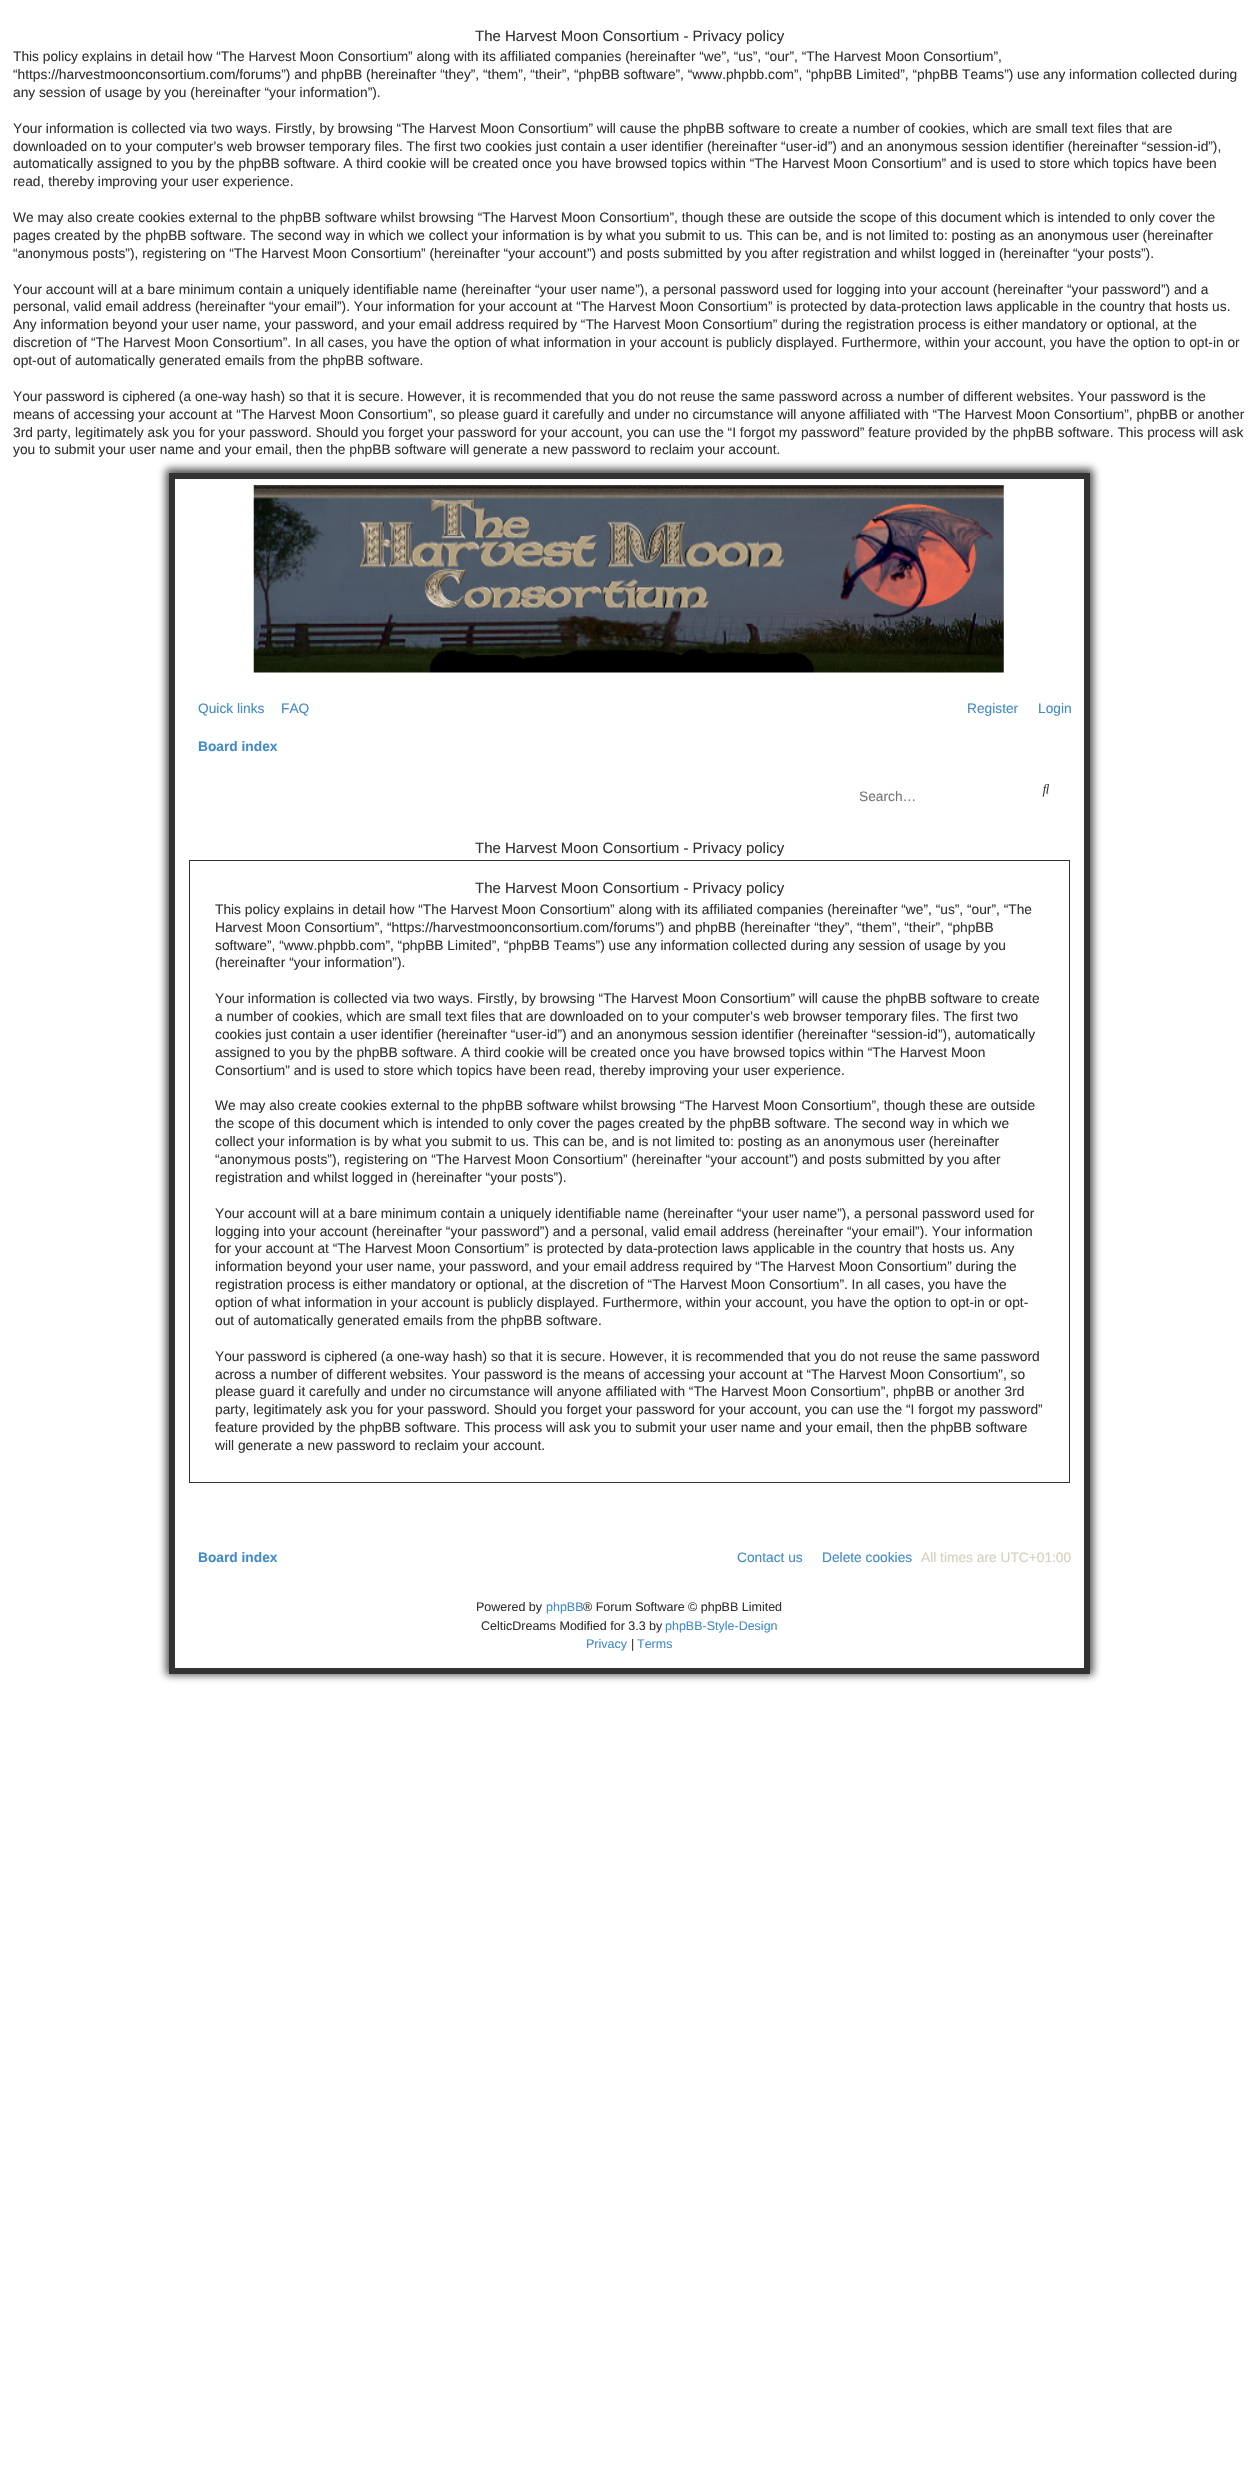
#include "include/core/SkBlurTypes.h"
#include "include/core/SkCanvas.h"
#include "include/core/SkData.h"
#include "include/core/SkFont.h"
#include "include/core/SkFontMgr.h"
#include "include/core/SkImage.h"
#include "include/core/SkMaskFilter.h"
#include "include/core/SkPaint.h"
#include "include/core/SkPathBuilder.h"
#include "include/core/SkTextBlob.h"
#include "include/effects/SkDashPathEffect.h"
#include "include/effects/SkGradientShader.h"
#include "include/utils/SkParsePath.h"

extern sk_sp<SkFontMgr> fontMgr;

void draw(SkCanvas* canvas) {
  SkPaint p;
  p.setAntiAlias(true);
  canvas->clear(SK_ColorWHITE);
  canvas->save();
  canvas->clipPath(SkPathBuilder(SkPathFillType::kEvenOdd).moveTo(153, 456).lineTo(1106, 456).lineTo(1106, 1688).lineTo(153, 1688).close().moveTo(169, 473).lineTo(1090, 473).lineTo(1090, 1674).lineTo(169, 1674).close().detach(), true);
  p.setColor(SkColorSetARGB(179, 2, 2, 2));
  p.setMaskFilter(SkMaskFilter::MakeBlur(kNormal_SkBlurStyle, 4));
  canvas->drawRect(SkRect::MakeLTRB(166, 469, 1093, 1675), p);
  p.setMaskFilter(nullptr);
  canvas->restore();
  p.setStyle(SkPaint::kStroke_Style);
  p.setStrokeWidth(6);
  p.setColor(SkColorSetRGB(51, 51, 51));
  canvas->drawRect(SkRect::MakeLTRB(172, 476, 1087, 1671), p);
  canvas->drawImageRect(SkImages::DeferredFromEncodedData(SkData::MakeFromFileName("images/1.png")), SkRect::MakeLTRB(253, 485, 1004, 673), SkSamplingOptions());
  canvas->drawImageRect(SkImages::DeferredFromEncodedData(SkData::MakeFromFileName("images/2.png")), SkRect::MakeLTRB(1042, 784, 1050, 797), SkSamplingOptions());
  p.setStrokeWidth(1);
  canvas->drawRect(SkRect::MakeLTRB(189.5f, 860.5f, 1069.5f, 1482.5f), p);
  SkFont font1(fontMgr->matchFamilyStyle("Liberation Sans", SkFontStyle::Normal()), 15);
  font1.setSubpixel(true);
  p.setStyle(SkPaint::kFill_Style);
  canvas->drawString("The Harvest Moon Consortium - Privacy policy", 475, 41, font1, p);
  SkFont font2(fontMgr->matchFamilyStyle("Liberation Sans", SkFontStyle::Normal()), 13.75f);
  font2.setSubpixel(true);
  canvas->drawString("This policy explains in detail how “The Harvest Moon Consortium” along with its affiliated companies (hereinafter “we”, “us”, “our”, “The Harvest Moon Consortium”,", 13, 61, font2, p);
  canvas->drawString("“https://harvestmoonconsortium.com/forums”) and phpBB (hereinafter “they”, “them”, “their”, “phpBB software”, “www.phpbb.com”, “phpBB Limited”, “phpBB Teams”) use any information collected during", 13, 79, font2, p);
  canvas->drawString("any session of usage by you (hereinafter “your information”).", 13, 97, font2, p);
  canvas->drawString("Your information is collected via two ways. Firstly, by browsing “The Harvest Moon Consortium” will cause the phpBB software to create a number of cookies, which are small text files that are", 13, 133, font2, p);
  canvas->drawString("downloaded on to your computer’s web browser temporary files. The first two cookies just contain a user identifier (hereinafter “user-id”) and an anonymous session identifier (hereinafter “session-id”),", 13, 151, font2, p);
  canvas->drawString("automatically assigned to you by the phpBB software. A third cookie will be created once you have browsed topics within “The Harvest Moon Consortium” and is used to store which topics have been", 13, 168, font2, p);
  canvas->drawString("read, thereby improving your user experience.", 13, 186, font2, p);
  canvas->drawString("We may also create cookies external to the phpBB software whilst browsing “The Harvest Moon Consortium”, though these are outside the scope of this document which is intended to only cover the", 13, 222, font2, p);
  canvas->drawString("pages created by the phpBB software. The second way in which we collect your information is by what you submit to us. This can be, and is not limited to: posting as an anonymous user (hereinafter", 13, 240, font2, p);
  canvas->drawString("“anonymous posts”), registering on “The Harvest Moon Consortium” (hereinafter “your account”) and posts submitted by you after registration and whilst logged in (hereinafter “your posts”).", 13, 258, font2, p);
  canvas->drawString("Your account will at a bare minimum contain a uniquely identifiable name (hereinafter “your user name”), a personal password used for logging into your account (hereinafter “your password”) and a", 13, 294, font2, p);
  canvas->drawString("personal, valid email address (hereinafter “your email”). Your information for your account at “The Harvest Moon Consortium” is protected by data-protection laws applicable in the country that hosts us.", 13, 311, font2, p);
  canvas->drawString("Any information beyond your user name, your password, and your email address required by “The Harvest Moon Consortium” during the registration process is either mandatory or optional, at the", 13, 329, font2, p);
  canvas->drawString("discretion of “The Harvest Moon Consortium”. In all cases, you have the option of what information in your account is publicly displayed. Furthermore, within your account, you have the option to opt-in or", 13, 347, font2, p);
  canvas->drawString("opt-out of automatically generated emails from the phpBB software.", 13, 365, font2, p);
  canvas->drawString("Your password is ciphered (a one-way hash) so that it is secure. However, it is recommended that you do not reuse the same password across a number of different websites. Your password is the", 13, 401, font2, p);
  canvas->drawString("means of accessing your account at “The Harvest Moon Consortium”, so please guard it carefully and under no circumstance will anyone affiliated with “The Harvest Moon Consortium”, phpBB or another", 13, 419, font2, p);
  canvas->drawString("3rd party, legitimately ask you for your password. Should you forget your password for your account, you can use the “I forgot my password” feature provided by the phpBB software. This process will ask", 13, 437, font2, p);
  canvas->drawString("you to submit your user name and your email, then the phpBB software will generate a new password to reclaim your account.", 13, 454, font2, p);
  p.setColor(SkColorSetRGB(66, 139, 202));
  canvas->drawString("Quick links", 198, 713, font2, p);
  canvas->drawString("FAQ", 281, 713, font2, p);
  canvas->drawString("Register", 967, 713, font2, p);
  canvas->drawString("Login", 1038, 713, font2, p);
  SkFont font3(fontMgr->matchFamilyStyle("Liberation Sans", SkFontStyle::Bold()), 13.75f);
  font3.setSubpixel(true);
  canvas->drawString("Board index", 198, 751, font3, p);
  p.setColor(SkColorSetRGB(117, 117, 117));
  canvas->drawString("Search…", 859, 801, font2, p);
  p.setColor(SkColorSetRGB(51, 51, 51));
  canvas->drawString("The Harvest Moon Consortium - Privacy policy", 475, 853, font1, p);
  canvas->drawString("The Harvest Moon Consortium - Privacy policy", 475, 893, font1, p);
  canvas->drawString("This policy explains in detail how “The Harvest Moon Consortium” along with its affiliated companies (hereinafter “we”, “us”, “our”, “The", 215, 914, font2, p);
  canvas->drawString("Harvest Moon Consortium”, “https://harvestmoonconsortium.com/forums”) and phpBB (hereinafter “they”, “them”, “their”, “phpBB", 215, 932, font2, p);
  canvas->drawString("software”, “www.phpbb.com”, “phpBB Limited”, “phpBB Teams”) use any information collected during any session of usage by you", 215, 950, font2, p);
  canvas->drawString("(hereinafter “your information”).", 215, 967, font2, p);
  canvas->drawString("Your information is collected via two ways. Firstly, by browsing “The Harvest Moon Consortium” will cause the phpBB software to create", 215, 1003, font2, p);
  canvas->drawString("a number of cookies, which are small text files that are downloaded on to your computer’s web browser temporary files. The first two", 215, 1021, font2, p);
  canvas->drawString("cookies just contain a user identifier (hereinafter “user-id”) and an anonymous session identifier (hereinafter “session-id”), automatically", 215, 1039, font2, p);
  canvas->drawString("assigned to you by the phpBB software. A third cookie will be created once you have browsed topics within “The Harvest Moon", 215, 1057, font2, p);
  canvas->drawString("Consortium” and is used to store which topics have been read, thereby improving your user experience.", 215, 1075, font2, p);
  canvas->drawString("We may also create cookies external to the phpBB software whilst browsing “The Harvest Moon Consortium”, though these are outside", 215, 1110, font2, p);
  canvas->drawString("the scope of this document which is intended to only cover the pages created by the phpBB software. The second way in which we", 215, 1128, font2, p);
  canvas->drawString("collect your information is by what you submit to us. This can be, and is not limited to: posting as an anonymous user (hereinafter", 215, 1146, font2, p);
  canvas->drawString("“anonymous posts”), registering on “The Harvest Moon Consortium” (hereinafter “your account”) and posts submitted by you after", 215, 1164, font2, p);
  canvas->drawString("registration and whilst logged in (hereinafter “your posts”).", 215, 1182, font2, p);
  canvas->drawString("Your account will at a bare minimum contain a uniquely identifiable name (hereinafter “your user name”), a personal password used for", 215, 1218, font2, p);
  canvas->drawString("logging into your account (hereinafter “your password”) and a personal, valid email address (hereinafter “your email”). Your information", 215, 1236, font2, p);
  canvas->drawString("for your account at “The Harvest Moon Consortium” is protected by data-protection laws applicable in the country that hosts us. Any", 215, 1253, font2, p);
  canvas->drawString("information beyond your user name, your password, and your email address required by “The Harvest Moon Consortium” during the", 215, 1271, font2, p);
  canvas->drawString("registration process is either mandatory or optional, at the discretion of “The Harvest Moon Consortium”. In all cases, you have the", 215, 1289, font2, p);
  canvas->drawString("option of what information in your account is publicly displayed. Furthermore, within your account, you have the option to opt-in or opt-", 215, 1307, font2, p);
  canvas->drawString("out of automatically generated emails from the phpBB software.", 215, 1325, font2, p);
  canvas->drawString("Your password is ciphered (a one-way hash) so that it is secure. However, it is recommended that you do not reuse the same password", 215, 1361, font2, p);
  canvas->drawString("across a number of different websites. Your password is the means of accessing your account at “The Harvest Moon Consortium”, so", 215, 1379, font2, p);
  canvas->drawString("please guard it carefully and under no circumstance will anyone affiliated with “The Harvest Moon Consortium”, phpBB or another 3rd", 215, 1396, font2, p);
  canvas->drawString("party, legitimately ask you for your password. Should you forget your password for your account, you can use the “I forgot my password”", 215, 1414, font2, p);
  canvas->drawString("feature provided by the phpBB software. This process will ask you to submit your user name and your email, then the phpBB software", 215, 1432, font2, p);
  canvas->drawString("will generate a new password to reclaim your account.", 215, 1450, font2, p);
  p.setColor(SkColorSetRGB(66, 139, 202));
  canvas->drawString("Board index", 198, 1562, font3, p);
  canvas->drawString("Contact us", 737, 1562, font2, p);
  canvas->drawString("Delete cookies", 822, 1562, font2, p);
  p.setColor(SkColorSetRGB(216, 207, 188));
  canvas->drawString("All times are UTC+01:00", 921, 1562, font2, p);
  SkFont font4(fontMgr->matchFamilyStyle("Liberation Sans", SkFontStyle::Normal()), 12.5f);
  font4.setSubpixel(true);
  p.setColor(SkColorSetRGB(51, 51, 51));
  canvas->drawString("Powered by", 476, 1611, font4, p);
  p.setColor(SkColorSetRGB(66, 139, 202));
  canvas->drawString("phpBB", 546, 1611, font4, p);
  p.setColor(SkColorSetRGB(51, 51, 51));
  canvas->drawString("® Forum Software © phpBB Limited", 583, 1611, font4, p);
  canvas->drawString("CelticDreams Modified for 3.3 by", 481, 1630, font4, p);
  p.setColor(SkColorSetRGB(66, 139, 202));
  canvas->drawString("phpBB-Style-Design", 665, 1630, font4, p);
  canvas->drawString("Privacy", 586, 1648, font4, p);
  p.setColor(SkColorSetRGB(51, 51, 51));
  canvas->drawString("|", 631, 1648, font4, p);
  p.setColor(SkColorSetRGB(66, 139, 202));
  canvas->drawString("Terms", 637, 1648, font4, p);
}
